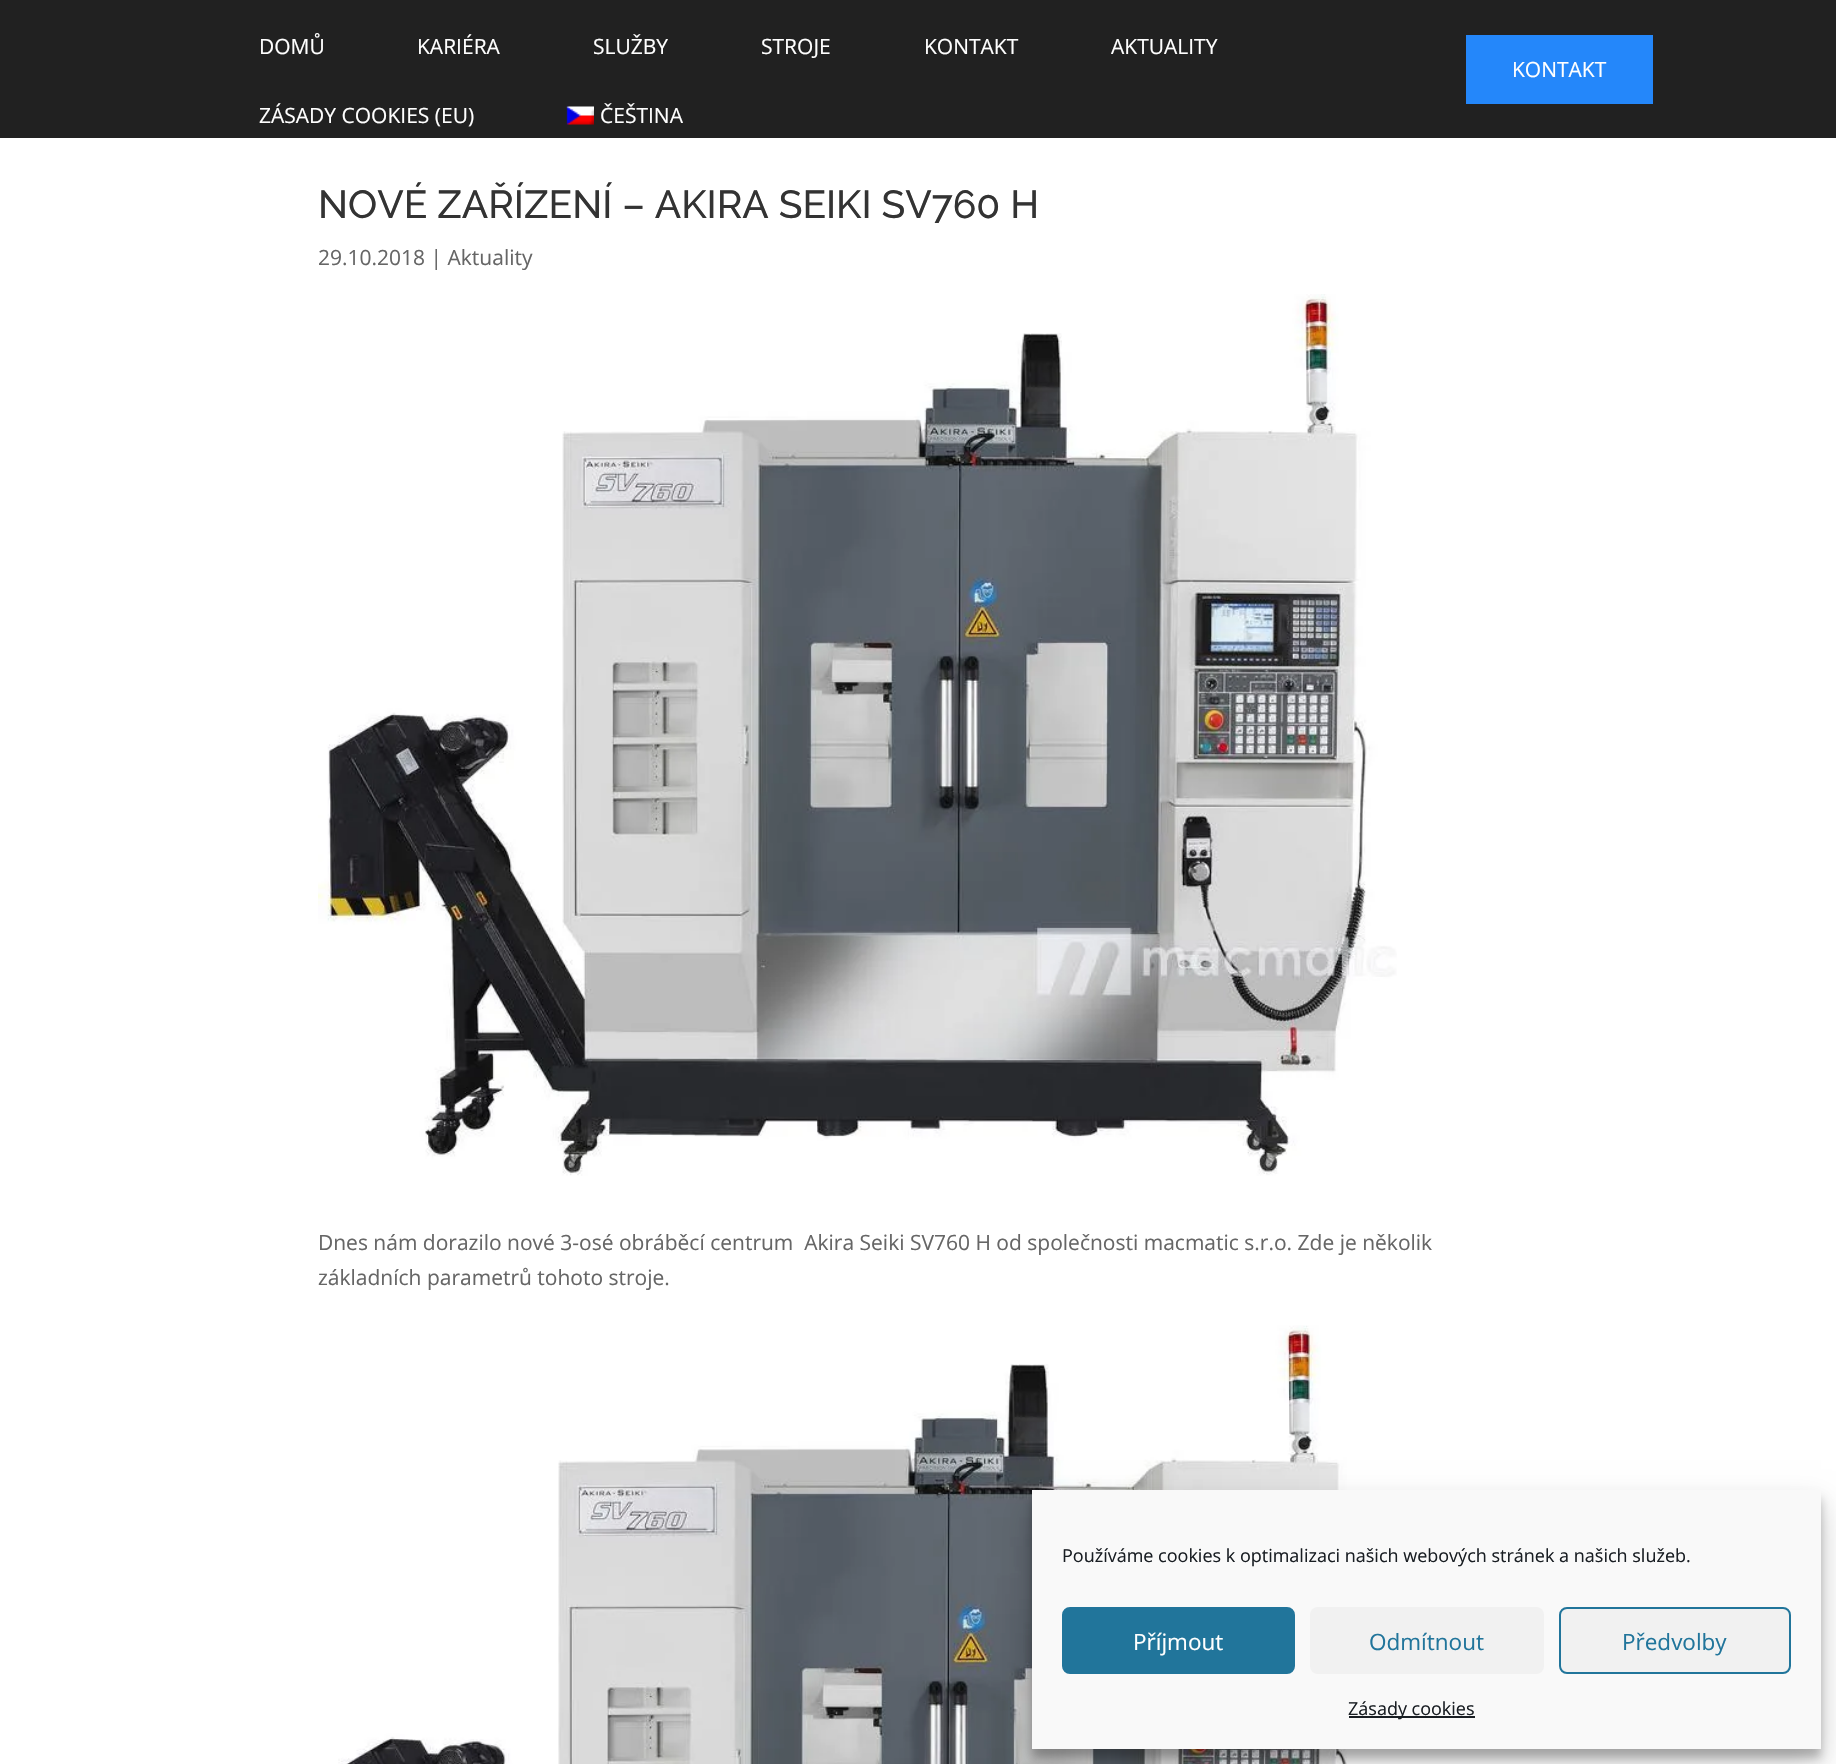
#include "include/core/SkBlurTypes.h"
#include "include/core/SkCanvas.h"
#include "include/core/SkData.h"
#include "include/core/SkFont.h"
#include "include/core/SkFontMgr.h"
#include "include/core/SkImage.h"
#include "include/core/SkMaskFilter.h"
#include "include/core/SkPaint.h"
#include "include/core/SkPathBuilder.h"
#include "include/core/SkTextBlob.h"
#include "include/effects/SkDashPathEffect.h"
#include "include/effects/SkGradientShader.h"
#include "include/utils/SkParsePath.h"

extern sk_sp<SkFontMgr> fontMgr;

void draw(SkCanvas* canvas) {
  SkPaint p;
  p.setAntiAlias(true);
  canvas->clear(SK_ColorWHITE);
  p.setColor(SkColorSetRGB(33, 33, 33));
  canvas->drawRect(SkRect::MakeLTRB(0, 0, 1836, 138), p);
  canvas->drawImageRect(SkImages::DeferredFromEncodedData(SkData::MakeFromFileName("images/1.png")), SkRect::MakeLTRB(566, 106, 594, 125), SkSamplingOptions());
  p.setColor(SkColorSetRGB(36, 135, 250));
  canvas->drawRect(SkRect::MakeLTRB(1466, 35, 1653, 104), p);
  canvas->drawImageRect(SkImages::DeferredFromEncodedData(SkData::MakeFromFileName("images/2.png")), SkRect::MakeLTRB(318, 294, 1397, 1176), SkSamplingOptions());
  canvas->drawImageRect(SkImages::DeferredFromEncodedData(SkData::MakeFromFileName("images/3.png")), SkRect::MakeLTRB(338, 1325, 1347, 1764), SkSamplingOptions());
  p.setColor(SkColorSetARGB(59, 0, 0, 0));
  p.setMaskFilter(SkMaskFilter::MakeBlur(kNormal_SkBlurStyle, 4.5f));
  canvas->drawRect(SkRect::MakeLTRB(1032, 1499, 1821, 1758), p);
  p.setMaskFilter(nullptr);
  p.setColor(SkColorSetARGB(48, 0, 0, 0));
  p.setMaskFilter(SkMaskFilter::MakeBlur(kNormal_SkBlurStyle, 15));
  canvas->drawRect(SkRect::MakeLTRB(1032, 1505, 1821, 1764), p);
  p.setMaskFilter(nullptr);
  p.setColor(SkColorSetRGB(249, 249, 249));
  canvas->drawRect(SkRect::MakeLTRB(1032, 1490, 1821, 1749), p);
  p.setColor(SkColorSetRGB(33, 117, 155));
  canvas->drawRoundRect(SkRect::MakeLTRB(1063, 1608, 1294, 1673), 7, 7, p);
  p.setStyle(SkPaint::kStroke_Style);
  p.setStrokeWidth(2);
  canvas->drawRoundRect(SkRect::MakeLTRB(1063, 1608, 1294, 1673), 7, 7, p);
  p.setStyle(SkPaint::kFill_Style);
  p.setColor(SkColorSetRGB(241, 241, 241));
  canvas->drawRoundRect(SkRect::MakeLTRB(1310, 1607, 1544, 1674), 8, 8, p);
  canvas->drawRoundRect(SkRect::MakeLTRB(1560, 1608, 1790, 1673), 7, 7, p);
  p.setStyle(SkPaint::kStroke_Style);
  p.setColor(SkColorSetRGB(33, 117, 155));
  canvas->drawRoundRect(SkRect::MakeLTRB(1560, 1608, 1790, 1673), 7, 7, p);
  p.setStyle(SkPaint::kFill_Style);
  p.setColor(SkColorSetRGB(25, 30, 35));
  canvas->drawRect(SkRect::MakeLTRB(1349, 1716, 1475, 1718), p);
  SkFont font1(fontMgr->matchFamilyStyle("Open Sans", SkFontStyle::Normal()), 21);
  font1.setSubpixel(true);
  p.setColor(SK_ColorWHITE);
  canvas->drawString("DOMŮ", 259, 54, font1, p);
  canvas->drawString("KARIÉRA", 417, 54, font1, p);
  canvas->drawString("SLUŽBY", 593, 54, font1, p);
  canvas->drawString("STROJE", 761, 54, font1, p);
  canvas->drawString("KONTAKT", 924, 54, font1, p);
  canvas->drawString("AKTUALITY", 1111, 54, font1, p);
  canvas->drawString("ZÁSADY COOKIES (EU)", 259, 123, font1, p);
  canvas->drawString("ČEŠTINA", 600, 123, font1, p);
  canvas->drawString("KONTAKT", 1512, 77, font1, p);
  SkFont font2(fontMgr->matchFamilyStyle("Raleway", SkFontStyle(100, SkFontStyle::kNormal_Width, SkFontStyle::kUpright_Slant)), 39);
  font2.setSubpixel(true);
  p.setColor(SkColorSetRGB(51, 51, 51));
  canvas->drawString("NOVÉ ZAŘÍZENÍ – AKIRA SEIKI SV760 H", 318, 218, font2, p);
  p.setColor(SkColorSetRGB(102, 102, 102));
  canvas->drawString("29.10.2018 | Aktuality", 318, 265, font1, p);
  canvas->drawString("Dnes nám dorazilo nové 3-osé obráběcí centrum  Akira Seiki SV760 H od společnosti macmatic s.r.o. Zde je několik", 318, 1250, font1, p);
  canvas->drawString("základních parametrů tohoto stroje.", 318, 1285, font1, p);
  SkFont font3(fontMgr->matchFamilyStyle("Open Sans", SkFontStyle::Normal()), 18);
  font3.setSubpixel(true);
  p.setColor(SkColorSetRGB(25, 30, 35));
  canvas->drawString("Používáme cookies k optimalizaci našich webových stránek a našich služeb.", 1062, 1562, font3, p);
  SkFont font4(fontMgr->matchFamilyStyle("Open Sans", SkFontStyle::Normal()), 22.5f);
  font4.setSubpixel(true);
  p.setColor(SK_ColorWHITE);
  canvas->drawString("Příjmout", 1133, 1650, font4, p);
  p.setColor(SkColorSetRGB(33, 117, 155));
  canvas->drawString("Odmítnout", 1369, 1650, font4, p);
  canvas->drawString("Předvolby", 1622, 1650, font4, p);
  p.setColor(SkColorSetRGB(25, 30, 35));
  canvas->drawString("Zásady cookies", 1348, 1715, font3, p);
}
